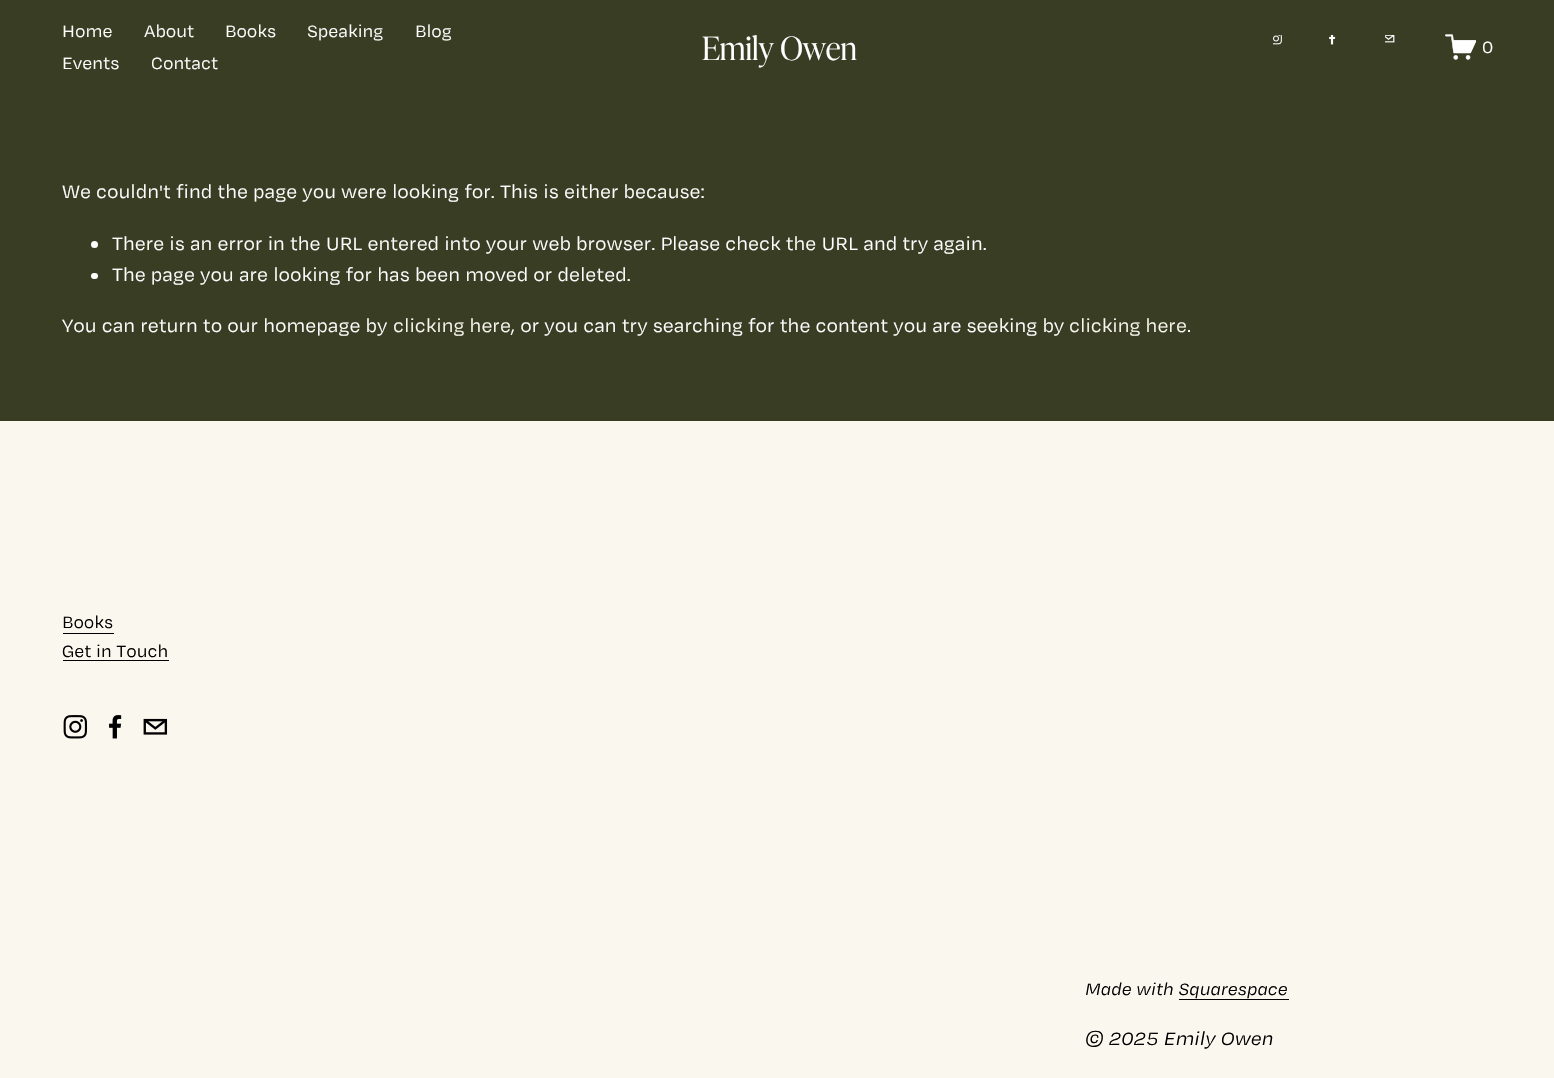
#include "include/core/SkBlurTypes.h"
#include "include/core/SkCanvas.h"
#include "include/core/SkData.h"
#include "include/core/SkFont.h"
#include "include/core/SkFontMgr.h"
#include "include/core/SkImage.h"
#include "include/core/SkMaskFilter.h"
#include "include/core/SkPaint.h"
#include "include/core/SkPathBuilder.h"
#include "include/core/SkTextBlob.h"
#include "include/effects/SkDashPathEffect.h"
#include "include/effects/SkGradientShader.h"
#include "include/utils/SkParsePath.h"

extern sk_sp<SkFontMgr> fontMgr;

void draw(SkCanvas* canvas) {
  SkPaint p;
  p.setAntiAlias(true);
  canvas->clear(SkColorSetRGB(57, 61, 36));
  canvas->drawImageRect(SkImages::DeferredFromEncodedData(SkData::MakeFromFileName("images/1.png")), SkRect::MakeLTRB(1273, 35, 1282, 45), SkSamplingOptions());
  canvas->drawImageRect(SkImages::DeferredFromEncodedData(SkData::MakeFromFileName("images/2.png")), SkRect::MakeLTRB(1329, 35, 1336, 45), SkSamplingOptions());
  canvas->drawImageRect(SkImages::DeferredFromEncodedData(SkData::MakeFromFileName("images/3.png")), SkRect::MakeLTRB(1385, 35, 1395, 43), SkSamplingOptions());
  canvas->drawImageRect(SkImages::DeferredFromEncodedData(SkData::MakeFromFileName("images/4.png")), SkRect::MakeLTRB(1445, 34, 1476, 60), SkSamplingOptions());
  p.setColor(SK_ColorWHITE);
  canvas->drawCircle(94.5f, 244.5f, 3.5f, p);
  canvas->drawRoundRect(SkRect::MakeLTRB(91, 273, 98, 279), 3, 3, p);
  p.setColor(SkColorSetRGB(250, 247, 239));
  canvas->drawRect(SkRect::MakeLTRB(0, 421, 1554, 1078), p);
  p.setColor(SK_ColorBLACK);
  canvas->drawRect(SkRect::MakeLTRB(63, 633, 114, 634), p);
  canvas->drawRect(SkRect::MakeLTRB(63, 660, 169, 661), p);
  canvas->drawImageRect(SkImages::DeferredFromEncodedData(SkData::MakeFromFileName("images/5.png")), SkRect::MakeLTRB(63, 715, 88, 739), SkSamplingOptions());
  canvas->drawImageRect(SkImages::DeferredFromEncodedData(SkData::MakeFromFileName("images/6.png")), SkRect::MakeLTRB(109, 715, 122, 739), SkSamplingOptions());
  canvas->drawImageRect(SkImages::DeferredFromEncodedData(SkData::MakeFromFileName("images/7.png")), SkRect::MakeLTRB(143, 718, 168, 735), SkSamplingOptions());
  canvas->drawRect(SkRect::MakeLTRB(1179, 999, 1289, 1000), p);
  SkFont font1(fontMgr->matchFamilyStyle("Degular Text", SkFontStyle::Normal()), 18.75f);
  font1.setSubpixel(true);
  p.setColor(SK_ColorWHITE);
  canvas->drawString("Home", 62, 37, font1, p);
  canvas->drawString("About", 144, 37, font1, p);
  canvas->drawString("Books", 225, 37, font1, p);
  canvas->drawString("Speaking", 307, 37, font1, p);
  canvas->drawString("Blog", 415, 37, font1, p);
  canvas->drawString("Events", 62, 69, font1, p);
  canvas->drawString("Contact", 151, 69, font1, p);
  SkFont font2(fontMgr->matchFamilyStyle("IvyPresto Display", SkFontStyle(300, SkFontStyle::kNormal_Width, SkFontStyle::kUpright_Slant)), 32);
  font2.setSubpixel(true);
  canvas->drawString("Emily Owen", 702, 60, font2, p);
  canvas->drawString("0", 1482, 53, font1, p);
  SkFont font3(fontMgr->matchFamilyStyle("Degular Text", SkFontStyle::Normal()), 20.6f);
  font3.setSubpixel(true);
  canvas->drawString("We couldn't find the page you were looking for. This is either because:", 62, 198, font3, p);
  canvas->drawString("There is an error in the URL entered into your web browser. Please check the URL and try again.", 112, 250, font3, p);
  canvas->drawString("The page you are looking for has been moved or deleted.", 112, 281, font3, p);
  canvas->drawString("You can return to our homepage by", 62, 332, font3, p);
  p.setColor(SkColorSetRGB(250, 247, 239));
  canvas->drawString("clicking here", 393, 332, font3, p);
  p.setColor(SK_ColorWHITE);
  canvas->drawString(", or you can try searching for the content you are seeking by", 511, 332, font3, p);
  p.setColor(SkColorSetRGB(250, 247, 239));
  canvas->drawString("clicking here", 1069, 332, font3, p);
  p.setColor(SK_ColorWHITE);
  canvas->drawString(".", 1187, 332, font3, p);
  p.setColor(SK_ColorBLACK);
  canvas->drawString("Books", 62, 628, font1, p);
  canvas->drawString("Get in Touch", 62, 657, font1, p);
  SkFont font4(fontMgr->matchFamilyStyle("Degular Text", SkFontStyle::Italic()), 18.75f);
  font4.setSubpixel(true);
  canvas->drawString("Made with Squarespace", 1085, 995, font4, p);
  SkFont font5(fontMgr->matchFamilyStyle("Degular Text", SkFontStyle::Italic()), 20.6f);
  font5.setSubpixel(true);
  canvas->drawString("© 2025 Emily Owen", 1085, 1045, font5, p);
}
